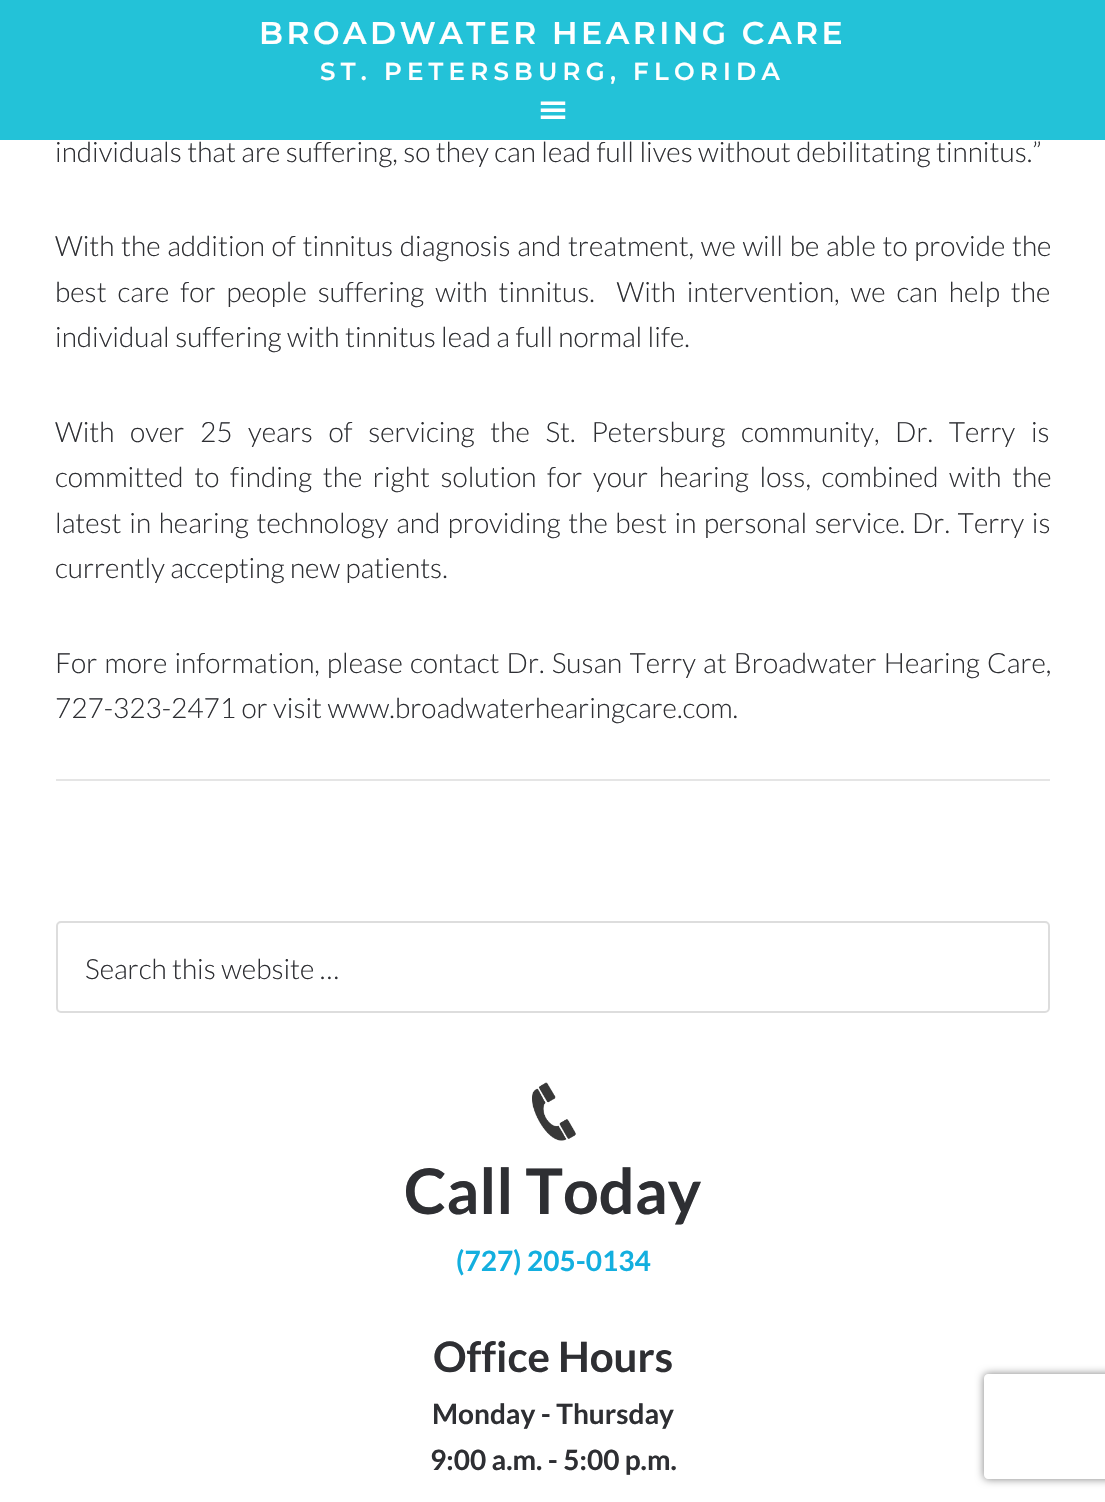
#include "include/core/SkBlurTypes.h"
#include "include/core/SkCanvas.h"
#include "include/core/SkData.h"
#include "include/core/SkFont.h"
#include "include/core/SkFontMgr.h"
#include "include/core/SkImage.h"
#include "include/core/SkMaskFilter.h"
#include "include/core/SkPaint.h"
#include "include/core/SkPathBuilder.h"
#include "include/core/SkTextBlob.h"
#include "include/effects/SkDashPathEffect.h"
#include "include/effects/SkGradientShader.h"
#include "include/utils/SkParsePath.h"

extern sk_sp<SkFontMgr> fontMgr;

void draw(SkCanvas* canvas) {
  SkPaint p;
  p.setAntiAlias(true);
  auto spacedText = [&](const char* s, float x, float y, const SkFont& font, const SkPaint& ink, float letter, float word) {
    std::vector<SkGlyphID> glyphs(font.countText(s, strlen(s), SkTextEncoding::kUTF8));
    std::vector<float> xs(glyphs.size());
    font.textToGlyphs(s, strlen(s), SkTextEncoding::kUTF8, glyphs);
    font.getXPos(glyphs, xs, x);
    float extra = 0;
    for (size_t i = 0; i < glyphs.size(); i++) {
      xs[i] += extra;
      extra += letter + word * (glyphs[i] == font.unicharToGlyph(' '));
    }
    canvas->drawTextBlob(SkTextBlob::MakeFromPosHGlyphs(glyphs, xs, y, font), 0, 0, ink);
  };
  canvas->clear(SK_ColorWHITE);
  p.setColor(SkColorSetRGB(35, 194, 216));
  canvas->drawRect(SkRect::MakeLTRB(0, 0, 1105, 140), p);
  canvas->drawImageRect(SkImages::DeferredFromEncodedData(SkData::MakeFromFileName("images/1.png")), SkRect::MakeLTRB(540, 101, 566, 119), SkSamplingOptions());
  p.setColor(SkColorSetRGB(229, 229, 229));
  canvas->drawRect(SkRect::MakeLTRB(56, 779, 1050, 781), p);
  p.setStyle(SkPaint::kStroke_Style);
  p.setStrokeWidth(2);
  p.setColor(SkColorSetRGB(221, 221, 221));
  canvas->drawRoundRect(SkRect::MakeLTRB(57, 922, 1049, 1012), 4, 4, p);
  canvas->drawImageRect(SkImages::DeferredFromEncodedData(SkData::MakeFromFileName("images/2.png")), SkRect::MakeLTRB(532, 1082, 576, 1141), SkSamplingOptions());
  canvas->save();
  canvas->clipPath(SkPathBuilder(SkPathFillType::kEvenOdd).moveTo(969, 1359).lineTo(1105, 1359).lineTo(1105, 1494).lineTo(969, 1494).close().moveTo(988, 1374).lineTo(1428, 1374).cubicTo(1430, 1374, 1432, 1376, 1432, 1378).lineTo(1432, 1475).cubicTo(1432, 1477, 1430, 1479, 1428, 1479).lineTo(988, 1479).cubicTo(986, 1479, 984, 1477, 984, 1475).lineTo(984, 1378).cubicTo(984, 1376, 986, 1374, 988, 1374).close().detach(), true);
  p.setStyle(SkPaint::kFill_Style);
  p.setColor(SkColorSetRGB(128, 128, 128));
  p.setMaskFilter(SkMaskFilter::MakeBlur(kNormal_SkBlurStyle, 4.5f));
  canvas->drawRoundRect(SkRect::MakeLTRB(984, 1374, 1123, 1479), 4, 4, p);
  p.setMaskFilter(nullptr);
  canvas->restore();
  SkFont font1(fontMgr->matchFamilyStyle("Montserrat", SkFontStyle(100, SkFontStyle::kNormal_Width, SkFontStyle::kUpright_Slant)), 31.5f);
  font1.setSubpixel(true);
  p.setColor(SK_ColorWHITE);
  spacedText("BROADWATER HEARING CARE", 259, 44, font1, p, 3.5f, 0);
  SkFont font2(fontMgr->matchFamilyStyle("Montserrat", SkFontStyle(100, SkFontStyle::kNormal_Width, SkFontStyle::kUpright_Slant)), 24.5f);
  font2.setSubpixel(true);
  spacedText("ST. PETERSBURG, FLORIDA", 320, 80, font2, p, 5.25f, 0);
  SkFont font3(fontMgr->matchFamilyStyle("Lato", SkFontStyle(300, SkFontStyle::kNormal_Width, SkFontStyle::kUpright_Slant)), 28);
  font3.setSubpixel(true);
  p.setColor(SkColorSetRGB(46, 47, 51));
  canvas->drawString("individuals that are suffering, so they can lead full lives without debilitating tinnitus.”", 55, 162, font3, p);
  spacedText("With the addition of tinnitus diagnosis and treatment, we will be able to provide the", 55, 256, font3, p, 0, 1.25f);
  spacedText("best care for people suffering with tinnitus.  With intervention, we can help the", 55, 302, font3, p, 0, 5.5f);
  canvas->drawString("individual suffering with tinnitus lead a full normal life.", 55, 347, font3, p);
  spacedText("With over 25 years of servicing the St. Petersburg community, Dr. Terry is", 55, 442, font3, p, 0, 10.25f);
  spacedText("committed to finding the right solution for your hearing loss, combined with the", 55, 487, font3, p, 0, 5.25f);
  spacedText("latest in hearing technology and providing the best in personal service.", 55, 533, font3, p, 0, 2.25f);
  spacedText("Dr. Terry is", 912, 533, font3, p, 0, 2.25f);
  canvas->drawString("currently accepting new patients.", 55, 578, font3, p);
  spacedText("For more information, please contact Dr. Susan Terry at Broadwater Hearing Care,", 55, 673, font3, p, 0, 1.75f);
  canvas->drawString("727-323-2471 or visit www.broadwaterhearingcare.com.", 55, 718, font3, p);
  canvas->drawString("Search this website …", 85, 979, font3, p);
  SkFont font4(fontMgr->matchFamilyStyle("Lato", SkFontStyle::Bold()), 63);
  font4.setSubpixel(true);
  canvas->drawString("Call Today", 404, 1214, font4, p);
  SkFont font5(fontMgr->matchFamilyStyle("Lato", SkFontStyle::Bold()), 28);
  font5.setSubpixel(true);
  p.setColor(SkColorSetRGB(19, 175, 223));
  canvas->drawString("(727) 205-0134", 456, 1271, font5, p);
  SkFont font6(fontMgr->matchFamilyStyle("Lato", SkFontStyle::Bold()), 42);
  font6.setSubpixel(true);
  p.setColor(SkColorSetRGB(46, 47, 51));
  canvas->drawString("Office Hours", 433, 1372, font6, p);
  canvas->drawString("Monday - Thursday", 432, 1424, font5, p);
  canvas->drawString("9:00 a.m. - 5:00 p.m.", 430, 1470, font5, p);
}
